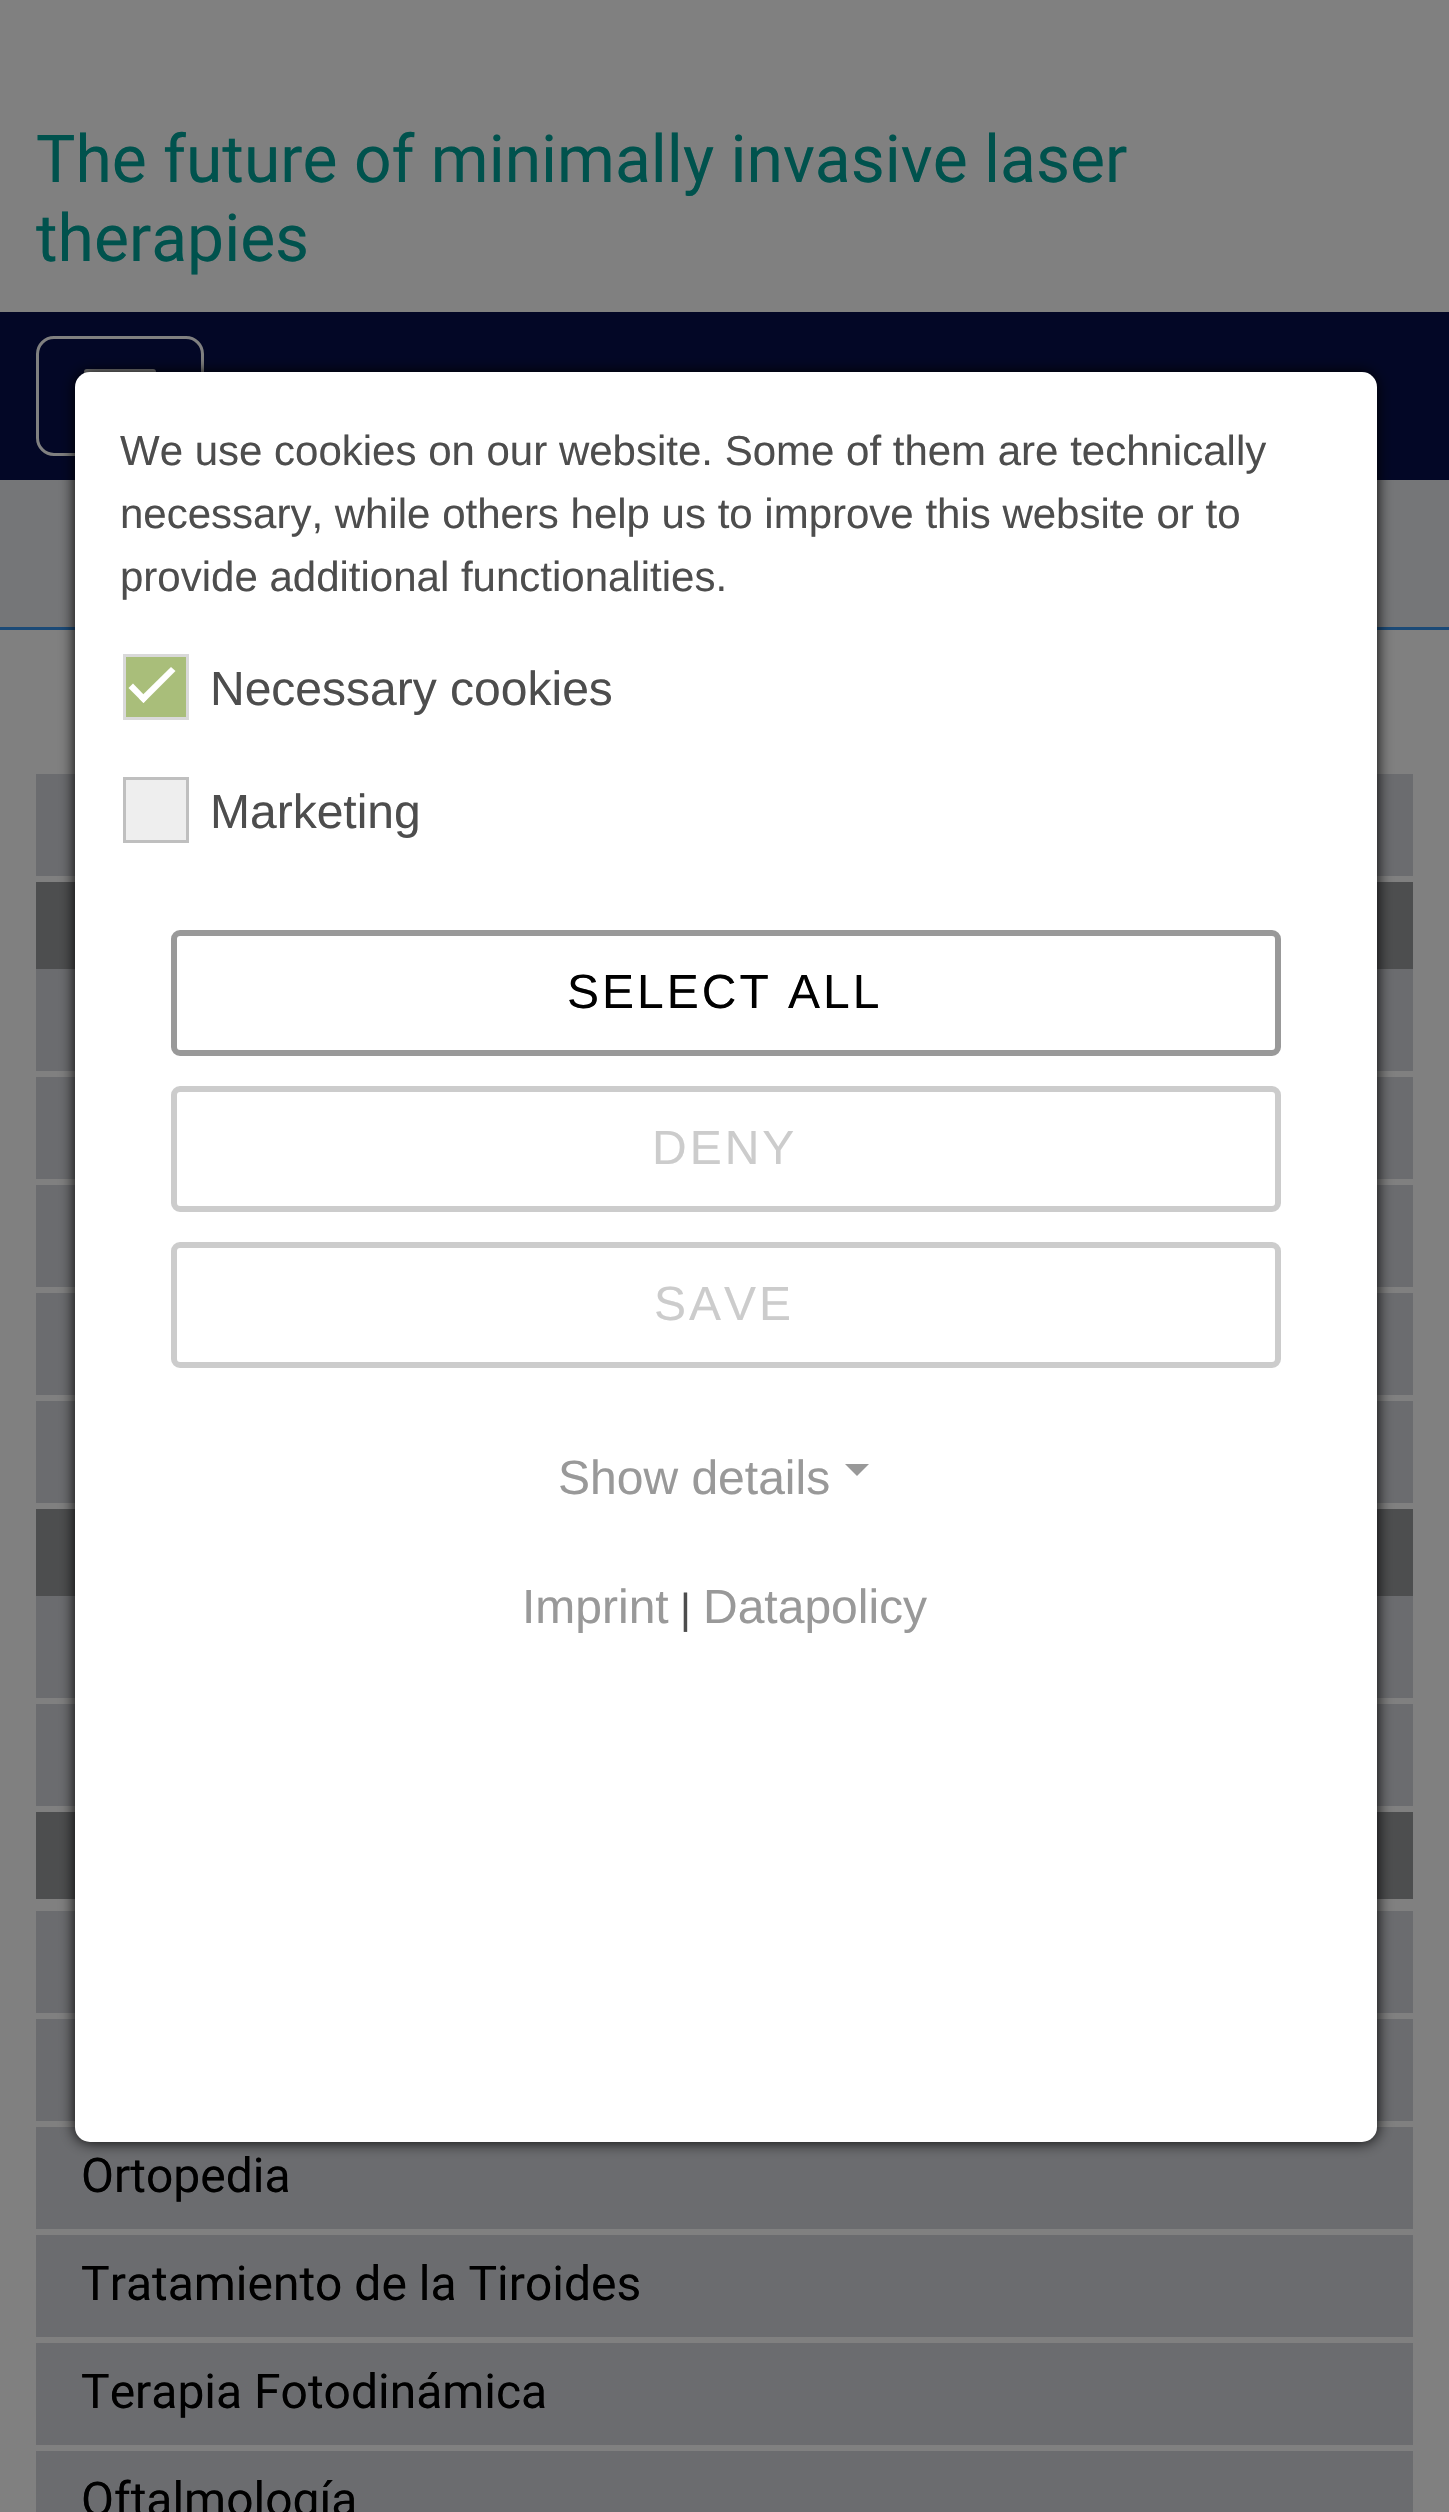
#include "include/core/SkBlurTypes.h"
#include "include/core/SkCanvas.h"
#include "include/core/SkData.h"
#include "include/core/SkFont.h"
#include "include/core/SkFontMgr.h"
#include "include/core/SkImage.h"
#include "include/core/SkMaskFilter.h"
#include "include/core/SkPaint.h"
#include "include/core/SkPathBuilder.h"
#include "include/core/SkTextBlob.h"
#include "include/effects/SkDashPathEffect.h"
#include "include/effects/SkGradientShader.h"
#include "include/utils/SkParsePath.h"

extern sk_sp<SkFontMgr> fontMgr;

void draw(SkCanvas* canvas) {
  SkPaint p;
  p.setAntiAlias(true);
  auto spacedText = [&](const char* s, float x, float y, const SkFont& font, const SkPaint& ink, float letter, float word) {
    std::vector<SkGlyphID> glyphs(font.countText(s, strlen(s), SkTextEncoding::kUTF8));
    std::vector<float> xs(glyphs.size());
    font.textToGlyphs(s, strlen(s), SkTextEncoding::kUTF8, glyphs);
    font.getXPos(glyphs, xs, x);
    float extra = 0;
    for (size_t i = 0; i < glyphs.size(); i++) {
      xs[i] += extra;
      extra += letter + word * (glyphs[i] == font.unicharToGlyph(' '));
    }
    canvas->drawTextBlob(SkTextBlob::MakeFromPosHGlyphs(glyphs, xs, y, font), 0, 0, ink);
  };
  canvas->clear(SkColorSetRGB(128, 128, 128));
  p.setColor(SkColorSetRGB(3, 7, 38));
  canvas->drawRect(SkRect::MakeLTRB(0, 312, 1449, 480), p);
  p.setStyle(SkPaint::kStroke_Style);
  p.setStrokeWidth(3);
  p.setColor(SkColorSetRGB(128, 128, 128));
  canvas->drawRoundRect(SkRect::MakeLTRB(37.5f, 337.5f, 202.5f, 454.5f), 16.5f, 16.5f, p);
  p.setStrokeWidth(6);
  p.setStrokeCap(SkPaint::kRound_Cap);
  canvas->drawPath(SkPathBuilder().moveTo(87, 372).lineTo(153, 372).moveTo(87, 396).lineTo(153, 396).moveTo(87, 420).lineTo(153, 420).detach(), p);
  p.setStyle(SkPaint::kFill_Style);
  p.setColor(SkColorSetRGB(117, 118, 120));
  canvas->drawRect(SkRect::MakeLTRB(0, 480, 1449, 627), p);
  p.setColor(SkColorSetRGB(27, 74, 119));
  canvas->drawRect(SkRect::MakeLTRB(0, 627, 1449, 630), p);
  p.setColor(SkColorSetRGB(77, 78, 79));
  canvas->drawRect(SkRect::MakeLTRB(36, 882, 1413, 1899), p);
  p.setColor(SkColorSetRGB(107, 108, 111));
  canvas->drawRect(SkRect::MakeLTRB(36, 774, 1413, 876), p);
  canvas->drawRect(SkRect::MakeLTRB(36, 969, 1413, 1071), p);
  p.setColor(SkColorSetRGB(128, 128, 128));
  canvas->drawRect(SkRect::MakeLTRB(36, 1071, 1413, 1077), p);
  p.setColor(SkColorSetRGB(107, 108, 111));
  canvas->drawRect(SkRect::MakeLTRB(36, 1077, 1413, 1179), p);
  p.setColor(SkColorSetRGB(128, 128, 128));
  canvas->drawRect(SkRect::MakeLTRB(36, 1179, 1413, 1185), p);
  p.setColor(SkColorSetRGB(107, 108, 111));
  canvas->drawRect(SkRect::MakeLTRB(36, 1185, 1413, 1287), p);
  p.setColor(SkColorSetRGB(128, 128, 128));
  canvas->drawRect(SkRect::MakeLTRB(36, 1287, 1413, 1293), p);
  p.setColor(SkColorSetRGB(107, 108, 111));
  canvas->drawRect(SkRect::MakeLTRB(36, 1293, 1413, 1395), p);
  p.setColor(SkColorSetRGB(128, 128, 128));
  canvas->drawRect(SkRect::MakeLTRB(36, 1395, 1413, 1401), p);
  p.setColor(SkColorSetRGB(107, 108, 111));
  canvas->drawRect(SkRect::MakeLTRB(36, 1401, 1413, 1503), p);
  p.setColor(SkColorSetRGB(128, 128, 128));
  canvas->drawRect(SkRect::MakeLTRB(36, 1503, 1413, 1509), p);
  p.setColor(SkColorSetRGB(107, 108, 111));
  canvas->drawRect(SkRect::MakeLTRB(36, 1596, 1413, 1698), p);
  p.setColor(SkColorSetRGB(128, 128, 128));
  canvas->drawRect(SkRect::MakeLTRB(36, 1698, 1413, 1704), p);
  p.setColor(SkColorSetRGB(107, 108, 111));
  canvas->drawRect(SkRect::MakeLTRB(36, 1704, 1413, 1806), p);
  p.setColor(SkColorSetRGB(128, 128, 128));
  canvas->drawRect(SkRect::MakeLTRB(36, 1806, 1413, 1812), p);
  p.setColor(SkColorSetRGB(107, 108, 111));
  canvas->drawRect(SkRect::MakeLTRB(36, 1911, 1413, 2013), p);
  canvas->drawRect(SkRect::MakeLTRB(36, 2019, 1413, 2121), p);
  canvas->drawRect(SkRect::MakeLTRB(36, 2127, 1413, 2229), p);
  canvas->drawRect(SkRect::MakeLTRB(36, 2235, 1413, 2337), p);
  canvas->drawRect(SkRect::MakeLTRB(36, 2343, 1413, 2445), p);
  canvas->drawRect(SkRect::MakeLTRB(36, 2451, 1413, 2512), p);
  p.setColor(SK_ColorBLACK);
  p.setMaskFilter(SkMaskFilter::MakeBlur(kNormal_SkBlurStyle, 7.5f));
  canvas->drawRoundRect(SkRect::MakeLTRB(75, 372, 1377, 2142), 15, 15, p);
  p.setMaskFilter(nullptr);
  p.setColor(SK_ColorWHITE);
  canvas->drawRoundRect(SkRect::MakeLTRB(75, 372, 1377, 2142), 15, 15, p);
  p.setColor(SkColorSetRGB(169, 190, 122));
  canvas->drawRect(SkRect::MakeLTRB(124.5f, 655.5f, 187.5f, 718.5f), p);
  p.setStyle(SkPaint::kStroke_Style);
  p.setStrokeWidth(3);
  p.setStrokeCap(SkPaint::kButt_Cap);
  p.setColor(SkColorSetRGB(217, 217, 217));
  canvas->drawRect(SkRect::MakeLTRB(124.5f, 655.5f, 187.5f, 718.5f), p);
  p.setStyle(SkPaint::kFill_Style);
  p.setColor(SK_ColorWHITE);
  canvas->drawPath(SkPathBuilder().moveTo(171, 667).lineTo(175.5f, 671).lineTo(143.5f, 703).lineTo(139, 698.5f).close().detach(), p);
  canvas->drawPath(SkPathBuilder().moveTo(133, 683.5f).lineTo(147.5f, 698.5f).lineTo(143.5f, 703).lineTo(128.5f, 688).close().detach(), p);
  p.setColor(SkColorSetRGB(238, 238, 238));
  canvas->drawRect(SkRect::MakeLTRB(124.5f, 778.5f, 187.5f, 841.5f), p);
  p.setStyle(SkPaint::kStroke_Style);
  p.setColor(SkColorSetRGB(191, 191, 191));
  canvas->drawRect(SkRect::MakeLTRB(124.5f, 778.5f, 187.5f, 841.5f), p);
  p.setStrokeWidth(6);
  p.setColor(SkColorSetRGB(153, 153, 153));
  canvas->drawRoundRect(SkRect::MakeLTRB(174, 933, 1278, 1053), 6, 6, p);
  p.setColor(SkColorSetRGB(204, 204, 204));
  canvas->drawRoundRect(SkRect::MakeLTRB(174, 1089, 1278, 1209), 6, 6, p);
  canvas->drawRoundRect(SkRect::MakeLTRB(174, 1245, 1278, 1365), 6, 6, p);
  p.setStyle(SkPaint::kFill_Style);
  p.setColor(SkColorSetRGB(153, 153, 153));
  canvas->drawPath(SkPathBuilder().moveTo(845, 1464).lineTo(869, 1464).lineTo(857, 1476).close().detach(), p);
  SkFont font1(fontMgr->matchFamilyStyle("Roboto", SkFontStyle::Normal()), 66);
  font1.setSubpixel(true);
  p.setColor(SkColorSetRGB(0, 82, 77));
  canvas->drawString("The future of minimally invasive laser", 36, 182, font1, p);
  canvas->drawString("therapies", 36, 261, font1, p);
  SkFont font2(fontMgr->matchFamilyStyle("Roboto", SkFontStyle::Normal()), 48);
  font2.setSubpixel(true);
  p.setColor(SK_ColorBLACK);
  canvas->drawString("Ortopedia", 81, 2192, font2, p);
  canvas->drawString("Tratamiento de la Tiroides", 81, 2300, font2, p);
  canvas->drawString("Terapia Fotodinámica", 81, 2408, font2, p);
  canvas->drawString("Oftalmología", 81, 2516, font2, p);
  SkFont font3(fontMgr->matchFamilyStyle("Liberation Sans", SkFontStyle::Normal()), 42);
  font3.setSubpixel(true);
  p.setColor(SkColorSetRGB(77, 77, 77));
  canvas->drawString("We use cookies on our website. Some of them are technically", 120, 465, font3, p);
  canvas->drawString("necessary, while others help us to improve this website or to", 120, 528, font3, p);
  canvas->drawString("provide additional functionalities.", 120, 591, font3, p);
  SkFont font4(fontMgr->matchFamilyStyle("Liberation Sans", SkFontStyle::Normal()), 48);
  font4.setSubpixel(true);
  canvas->drawString("Necessary cookies", 210, 705, font4, p);
  canvas->drawString("Marketing", 210, 828, font4, p);
  p.setColor(SK_ColorBLACK);
  spacedText("SELECT ALL", 567, 1008, font4, p, 3, 0);
  p.setColor(SkColorSetRGB(204, 204, 204));
  spacedText("DENY", 652, 1164, font4, p, 3, 0);
  spacedText("SAVE", 654, 1320, font4, p, 3, 0);
  p.setColor(SkColorSetRGB(153, 153, 153));
  canvas->drawString("Show details", 558, 1494, font4, p);
  canvas->drawString("Imprint", 522, 1623, font4, p);
  p.setColor(SkColorSetRGB(77, 77, 77));
  canvas->drawString("|", 680, 1623, font3, p);
  p.setColor(SkColorSetRGB(153, 153, 153));
  canvas->drawString("Datapolicy", 703, 1623, font4, p);
}
